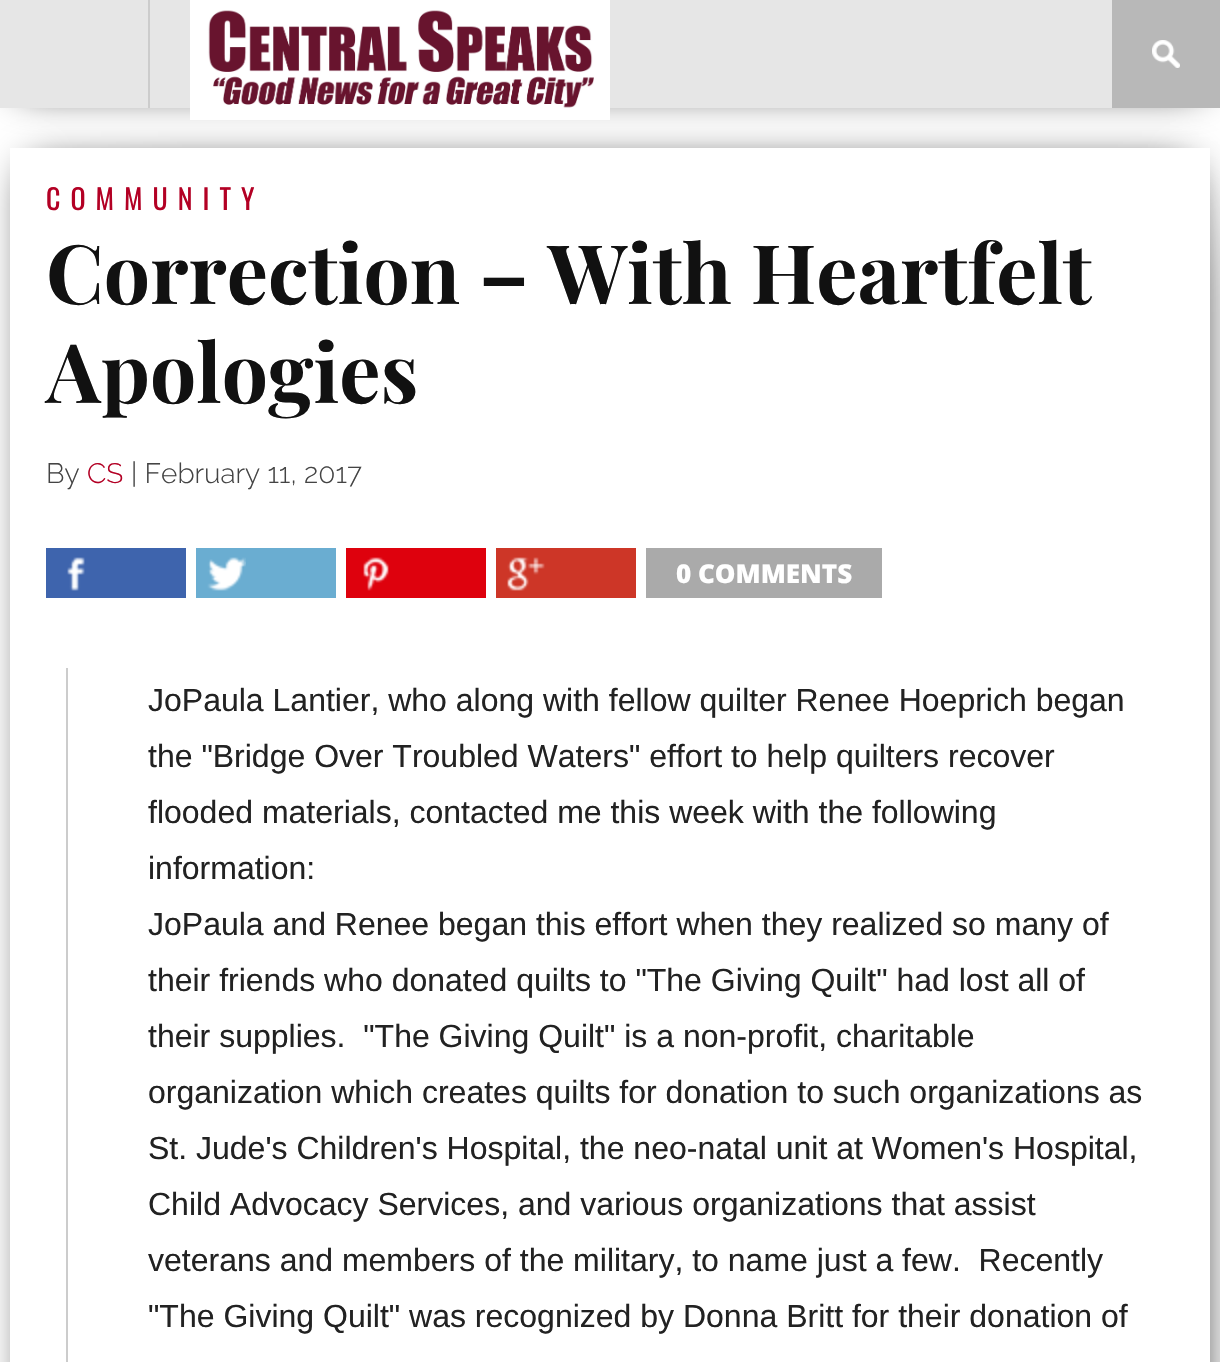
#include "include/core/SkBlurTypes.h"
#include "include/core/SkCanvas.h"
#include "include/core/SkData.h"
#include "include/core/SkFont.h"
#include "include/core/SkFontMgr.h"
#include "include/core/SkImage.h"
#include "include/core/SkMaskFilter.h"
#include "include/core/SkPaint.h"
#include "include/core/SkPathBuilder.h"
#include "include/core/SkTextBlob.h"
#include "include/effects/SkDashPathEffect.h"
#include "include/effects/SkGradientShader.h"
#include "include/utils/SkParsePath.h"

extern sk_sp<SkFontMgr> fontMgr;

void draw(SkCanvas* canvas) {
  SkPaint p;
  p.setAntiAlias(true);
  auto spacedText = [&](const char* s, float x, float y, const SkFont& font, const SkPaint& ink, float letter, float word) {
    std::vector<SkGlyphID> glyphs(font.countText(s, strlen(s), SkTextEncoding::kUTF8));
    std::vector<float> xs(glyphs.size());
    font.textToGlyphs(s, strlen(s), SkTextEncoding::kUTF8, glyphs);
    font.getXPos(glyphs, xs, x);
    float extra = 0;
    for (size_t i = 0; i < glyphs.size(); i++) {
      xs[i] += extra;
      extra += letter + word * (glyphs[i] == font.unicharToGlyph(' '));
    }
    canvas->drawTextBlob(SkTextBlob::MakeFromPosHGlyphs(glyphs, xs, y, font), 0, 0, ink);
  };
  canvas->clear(SK_ColorWHITE);
  p.setColor(SK_ColorBLACK);
  p.setMaskFilter(SkMaskFilter::MakeBlur(kNormal_SkBlurStyle, 20));
  canvas->drawRect(SkRect::MakeLTRB(20, 20, 1200, 88), p);
  p.setMaskFilter(nullptr);
  canvas->save();
  canvas->clipPath(SkPathBuilder(SkPathFillType::kEvenOdd).moveTo(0, 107).lineTo(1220, 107).lineTo(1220, 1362).lineTo(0, 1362).close().moveTo(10, 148).lineTo(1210, 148).lineTo(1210, 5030).lineTo(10, 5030).close().detach(), true);
  p.setMaskFilter(SkMaskFilter::MakeBlur(kNormal_SkBlurStyle, 20));
  canvas->drawRect(SkRect::MakeLTRB(30, 168, 1190, 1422), p);
  p.setMaskFilter(nullptr);
  canvas->restore();
  canvas->save();
  canvas->clipPath(SkPathBuilder(SkPathFillType::kEvenOdd).moveTo(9, 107).lineTo(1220, 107).lineTo(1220, 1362).lineTo(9, 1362).close().moveTo(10, 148).lineTo(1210, 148).lineTo(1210, 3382).lineTo(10, 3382).close().detach(), true);
  p.setMaskFilter(SkMaskFilter::MakeBlur(kNormal_SkBlurStyle, 40));
  canvas->drawRect(SkRect::MakeLTRB(130, 228, 1170, 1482), p);
  p.setMaskFilter(nullptr);
  canvas->restore();
  p.setColor(SkColorSetRGB(230, 230, 230));
  canvas->drawRect(SkRect::MakeLTRB(0, 0, 1112, 108), p);
  p.setColor(SkColorSetRGB(204, 204, 204));
  canvas->drawRect(SkRect::MakeLTRB(148, 0, 150, 108), p);
  canvas->drawImageRect(SkImages::DeferredFromEncodedData(SkData::MakeFromFileName("images/1.png")), SkRect::MakeLTRB(190, 0, 610, 120), SkSamplingOptions());
  p.setColor(SkColorSetRGB(184, 184, 184));
  canvas->drawRect(SkRect::MakeLTRB(1112, 0, 1220, 108), p);
  canvas->drawImageRect(SkImages::DeferredFromEncodedData(SkData::MakeFromFileName("images/2.png")), SkRect::MakeLTRB(1152, 40, 1180, 68), SkSamplingOptions());
  p.setColor(SkColorSetRGB(62, 100, 173));
  canvas->drawRect(SkRect::MakeLTRB(46, 548, 186, 598), p);
  canvas->drawImageRect(SkImages::DeferredFromEncodedData(SkData::MakeFromFileName("images/3.png")), SkRect::MakeLTRB(67, 557, 85, 591), SkSamplingOptions());
  p.setColor(SkColorSetRGB(106, 173, 209));
  canvas->drawRect(SkRect::MakeLTRB(196, 548, 336, 598), p);
  canvas->drawImageRect(SkImages::DeferredFromEncodedData(SkData::MakeFromFileName("images/4.png")), SkRect::MakeLTRB(207, 557, 246, 591), SkSamplingOptions());
  p.setColor(SkColorSetRGB(222, 1, 13));
  canvas->drawRect(SkRect::MakeLTRB(346, 548, 486, 598), p);
  canvas->drawImageRect(SkImages::DeferredFromEncodedData(SkData::MakeFromFileName("images/5.png")), SkRect::MakeLTRB(363, 557, 389, 591), SkSamplingOptions());
  p.setColor(SkColorSetRGB(205, 54, 39));
  canvas->drawRect(SkRect::MakeLTRB(496, 548, 636, 598), p);
  canvas->drawImageRect(SkImages::DeferredFromEncodedData(SkData::MakeFromFileName("images/6.png")), SkRect::MakeLTRB(507, 557, 545, 591), SkSamplingOptions());
  p.setColor(SkColorSetRGB(170, 170, 170));
  canvas->drawRect(SkRect::MakeLTRB(646, 548, 882, 598), p);
  p.setColor(SkColorSetRGB(204, 204, 204));
  canvas->drawRect(SkRect::MakeLTRB(66, 668, 68, 1362), p);
  SkFont font1(fontMgr->matchFamilyStyle("Oswald", SkFontStyle::Normal()), 28);
  font1.setSubpixel(true);
  p.setColor(SkColorSetRGB(179, 0, 36));
  spacedText("COMMUNITY", 46, 210, font1, p, 10, 0);
  SkFont font2(fontMgr->matchFamilyStyle("Playfair Display", SkFontStyle::Bold()), 82);
  font2.setSubpixel(true);
  p.setColor(SkColorSetRGB(17, 17, 17));
  canvas->drawString("Correction – With Heartfelt", 46, 304, font2, p);
  canvas->drawString("Apologies", 46, 403, font2, p);
  SkFont font3(fontMgr->matchFamilyStyle("Raleway", SkFontStyle(300, SkFontStyle::kNormal_Width, SkFontStyle::kUpright_Slant)), 28);
  font3.setSubpixel(true);
  p.setColor(SkColorSetRGB(68, 68, 68));
  canvas->drawString("By", 46, 483, font3, p);
  p.setColor(SkColorSetRGB(179, 0, 36));
  canvas->drawString("CS", 87, 483, font3, p);
  p.setColor(SkColorSetRGB(68, 68, 68));
  canvas->drawString("| February 11, 2017", 131, 483, font3, p);
  SkFont font4(fontMgr->matchFamilyStyle("Open Sans", SkFontStyle(800, SkFontStyle::kNormal_Width, SkFontStyle::kUpright_Slant)), 26);
  font4.setSubpixel(true);
  p.setColor(SK_ColorWHITE);
  canvas->drawString("0 COMMENTS", 676, 583, font4, p);
  SkFont font5(fontMgr->matchFamilyStyle("Liberation Sans", SkFontStyle::Normal()), 32);
  font5.setSubpixel(true);
  p.setColor(SkColorSetRGB(34, 34, 34));
  canvas->drawString("JoPaula Lantier, who along with fellow quilter Renee Hoeprich began", 148, 711, font5, p);
  canvas->drawString("the \"Bridge Over Troubled Waters\" effort to help quilters recover", 148, 767, font5, p);
  canvas->drawString("flooded materials, contacted me this week with the following", 148, 823, font5, p);
  canvas->drawString("information:", 148, 879, font5, p);
  canvas->drawString("JoPaula and Renee began this effort when they realized so many of", 148, 935, font5, p);
  canvas->drawString("their friends who donated quilts to \"The Giving Quilt\" had lost all of", 148, 991, font5, p);
  canvas->drawString("their supplies.  \"The Giving Quilt\" is a non-profit, charitable", 148, 1047, font5, p);
  canvas->drawString("organization which creates quilts for donation to such organizations as", 148, 1103, font5, p);
  canvas->drawString("St. Jude's Children's Hospital, the neo-natal unit at Women's Hospital,", 148, 1159, font5, p);
  canvas->drawString("Child Advocacy Services, and various organizations that assist", 148, 1215, font5, p);
  canvas->drawString("veterans and members of the military, to name just a few.  Recently", 148, 1271, font5, p);
  canvas->drawString("\"The Giving Quilt\" was recognized by Donna Britt for their donation of", 148, 1327, font5, p);
}
